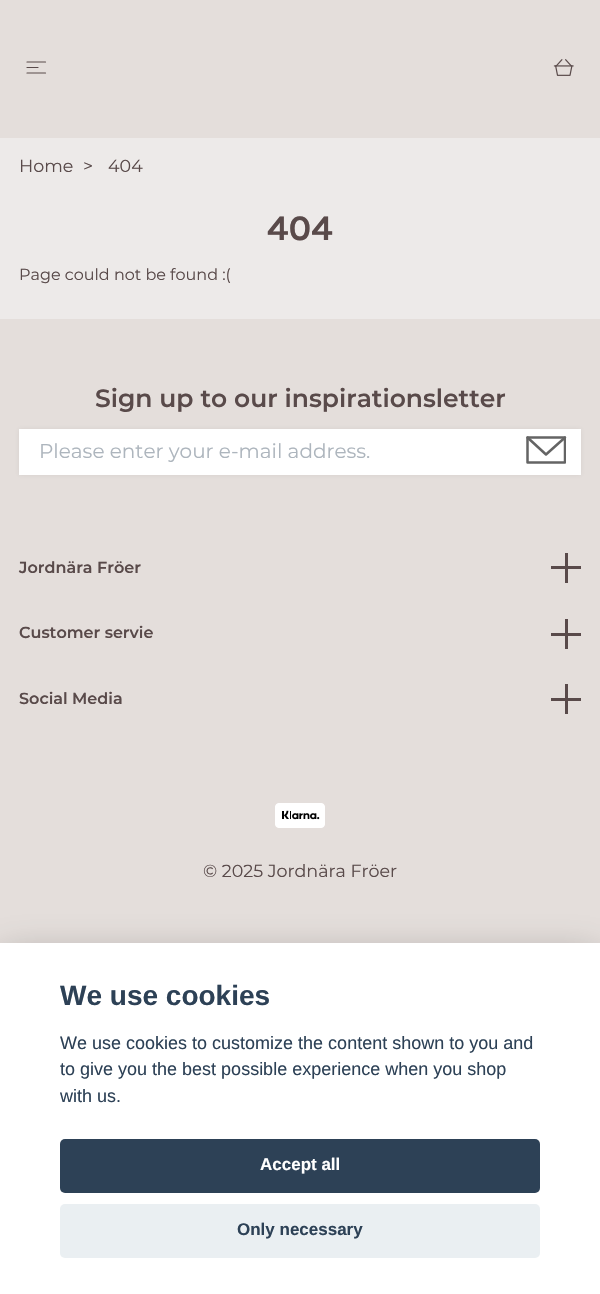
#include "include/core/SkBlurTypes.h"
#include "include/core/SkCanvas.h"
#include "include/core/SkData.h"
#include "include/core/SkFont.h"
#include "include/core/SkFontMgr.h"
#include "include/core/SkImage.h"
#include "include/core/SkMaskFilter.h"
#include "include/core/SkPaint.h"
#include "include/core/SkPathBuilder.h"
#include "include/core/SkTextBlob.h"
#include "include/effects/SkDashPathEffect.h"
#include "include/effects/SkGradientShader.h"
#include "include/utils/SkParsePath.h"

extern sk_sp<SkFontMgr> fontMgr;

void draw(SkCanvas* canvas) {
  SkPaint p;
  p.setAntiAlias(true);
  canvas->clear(SkColorSetRGB(237, 234, 233));
  p.setColor(SkColorSetRGB(228, 222, 219));
  canvas->drawRect(SkRect::MakeLTRB(0, 0, 600, 138), p);
  p.setStyle(SkPaint::kStroke_Style);
  p.setStrokeWidth(1.2f);
  p.setStrokeCap(SkPaint::kRound_Cap);
  p.setStrokeJoin(SkPaint::kRound_Join);
  p.setColor(SkColorSetRGB(89, 74, 74));
  canvas->drawPath(SkPathBuilder().moveTo(27, 62).lineTo(45.5f, 62).moveTo(27, 67.5f).lineTo(38, 67.5f).moveTo(27, 73).lineTo(45.5f, 73).detach(), p);
  canvas->drawImageRect(SkImages::DeferredFromEncodedData(SkData::MakeFromFileName("images/1.png")), SkRect::MakeLTRB(553, 59, 574, 76), SkSamplingOptions());
  p.setStyle(SkPaint::kFill_Style);
  p.setColor(SkColorSetRGB(228, 222, 219));
  canvas->drawRect(SkRect::MakeLTRB(0, 319, 600, 943), p);
  p.setColor(SkColorSetARGB(18, 34, 34, 34));
  p.setMaskFilter(SkMaskFilter::MakeBlur(kNormal_SkBlurStyle, 2.5f));
  canvas->drawRect(SkRect::MakeLTRB(19, 429, 581, 475), p);
  p.setMaskFilter(nullptr);
  p.setColor(SK_ColorWHITE);
  canvas->drawRect(SkRect::MakeLTRB(19, 429, 581, 475), p);
  p.setStyle(SkPaint::kStroke_Style);
  p.setStrokeWidth(2.5f);
  p.setColor(SkColorSetRGB(100, 100, 100));
  canvas->drawPath(SkPathBuilder().moveTo(527.5f, 437.5f).lineTo(546, 454.5f).lineTo(565, 437.5f).detach(), p);
  canvas->save();
  canvas->clipRect(SkRect::MakeLTRB(526, 430, 566, 470));
  canvas->drawPath(SkPathBuilder().moveTo(527.5f, 437.5f).lineTo(565, 437.5f).lineTo(565, 462.5f).lineTo(527.5f, 462.5f).close().detach(), p);
  canvas->restore();
  p.setStyle(SkPaint::kFill_Style);
  p.setColor(SkColorSetRGB(89, 74, 74));
  canvas->drawRect(SkRect::MakeLTRB(565, 553, 568, 583), p);
  canvas->drawRect(SkRect::MakeLTRB(551, 566, 581, 569), p);
  canvas->drawRect(SkRect::MakeLTRB(565, 619, 568, 649), p);
  canvas->drawRect(SkRect::MakeLTRB(551, 633, 581, 636), p);
  canvas->drawRect(SkRect::MakeLTRB(565, 684, 568, 714), p);
  canvas->drawRect(SkRect::MakeLTRB(551, 698, 581, 701), p);
  canvas->drawImageRect(SkImages::DeferredFromEncodedData(SkData::MakeFromFileName("images/2.png")), SkRect::MakeLTRB(275, 803, 325, 828), SkSamplingOptions());
  p.setColor(SkColorSetARGB(71, 2, 2, 3));
  p.setMaskFilter(SkMaskFilter::MakeBlur(kNormal_SkBlurStyle, 19));
  canvas->drawRect(SkRect::MakeLTRB(0, 955, 600, 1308), p);
  p.setMaskFilter(nullptr);
  p.setColor(SK_ColorWHITE);
  canvas->drawRect(SkRect::MakeLTRB(0, 943, 600, 1294), p);
  p.setColor(SkColorSetRGB(45, 65, 86));
  canvas->drawRoundRect(SkRect::MakeLTRB(60, 1139, 540, 1193), 5, 5, p);
  p.setColor(SkColorSetRGB(234, 239, 242));
  canvas->drawRoundRect(SkRect::MakeLTRB(60, 1204, 540, 1258), 5, 5, p);
  SkFont font1(fontMgr->matchFamilyStyle("Montserrat", SkFontStyle::Normal()), 17.5f);
  font1.setSubpixel(true);
  p.setColor(SkColorSetRGB(89, 74, 74));
  canvas->drawString("Home", 19, 172, font1, p);
  canvas->drawString(">", 83, 172, font1, p);
  canvas->drawString("404", 108, 172, font1, p);
  SkFont font2(fontMgr->matchFamilyStyle("Karla", SkFontStyle::Bold()), 36);
  font2.setSubpixel(true);
  canvas->drawString("404", 267, 240, font2, p);
  SkFont font3(fontMgr->matchFamilyStyle("Montserrat", SkFontStyle::Normal()), 16);
  font3.setSubpixel(true);
  canvas->drawString("Page could not be found :(", 19, 280, font3, p);
  SkFont font4(fontMgr->matchFamilyStyle("Montserrat", SkFontStyle(600, SkFontStyle::kNormal_Width, SkFontStyle::kUpright_Slant)), 25);
  font4.setSubpixel(true);
  canvas->drawString("Sign up to our inspirationsletter", 95, 407, font4, p);
  SkFont font5(fontMgr->matchFamilyStyle("Montserrat", SkFontStyle::Normal()), 20);
  font5.setSubpixel(true);
  p.setColor(SkColorSetRGB(173, 181, 189));
  canvas->drawString("Please enter your e-mail address.", 39, 458, font5, p);
  SkFont font6(fontMgr->matchFamilyStyle("Montserrat", SkFontStyle(600, SkFontStyle::kNormal_Width, SkFontStyle::kUpright_Slant)), 16);
  font6.setSubpixel(true);
  p.setColor(SkColorSetRGB(89, 74, 74));
  canvas->drawString("Jordnära Fröer", 19, 573, font6, p);
  canvas->drawString("Customer servie", 19, 638, font6, p);
  canvas->drawString("Social Media", 19, 704, font6, p);
  canvas->drawString("© 2025 Jordnära Fröer", 203, 877, font1, p);
  SkFont font7(fontMgr->matchFamilyStyle("Liberation Sans", SkFontStyle::Bold()), 28);
  font7.setSubpixel(true);
  p.setColor(SkColorSetRGB(45, 65, 86));
  canvas->drawString("We use cookies", 60, 1005, font7, p);
  SkFont font8(fontMgr->matchFamilyStyle("Liberation Sans", SkFontStyle::Normal()), 18);
  font8.setSubpixel(true);
  canvas->drawString("We use cookies to customize the content shown to you and", 60, 1049, font8, p);
  canvas->drawString("to give you the best possible experience when you shop", 60, 1075, font8, p);
  canvas->drawString("with us.", 60, 1102, font8, p);
  SkFont font9(fontMgr->matchFamilyStyle("Liberation Sans", SkFontStyle::Bold()), 17);
  font9.setSubpixel(true);
  p.setColor(SK_ColorWHITE);
  canvas->drawString("Accept all", 260, 1170, font9, p);
  p.setColor(SkColorSetRGB(45, 65, 86));
  canvas->drawString("Only necessary", 237, 1235, font9, p);
}
